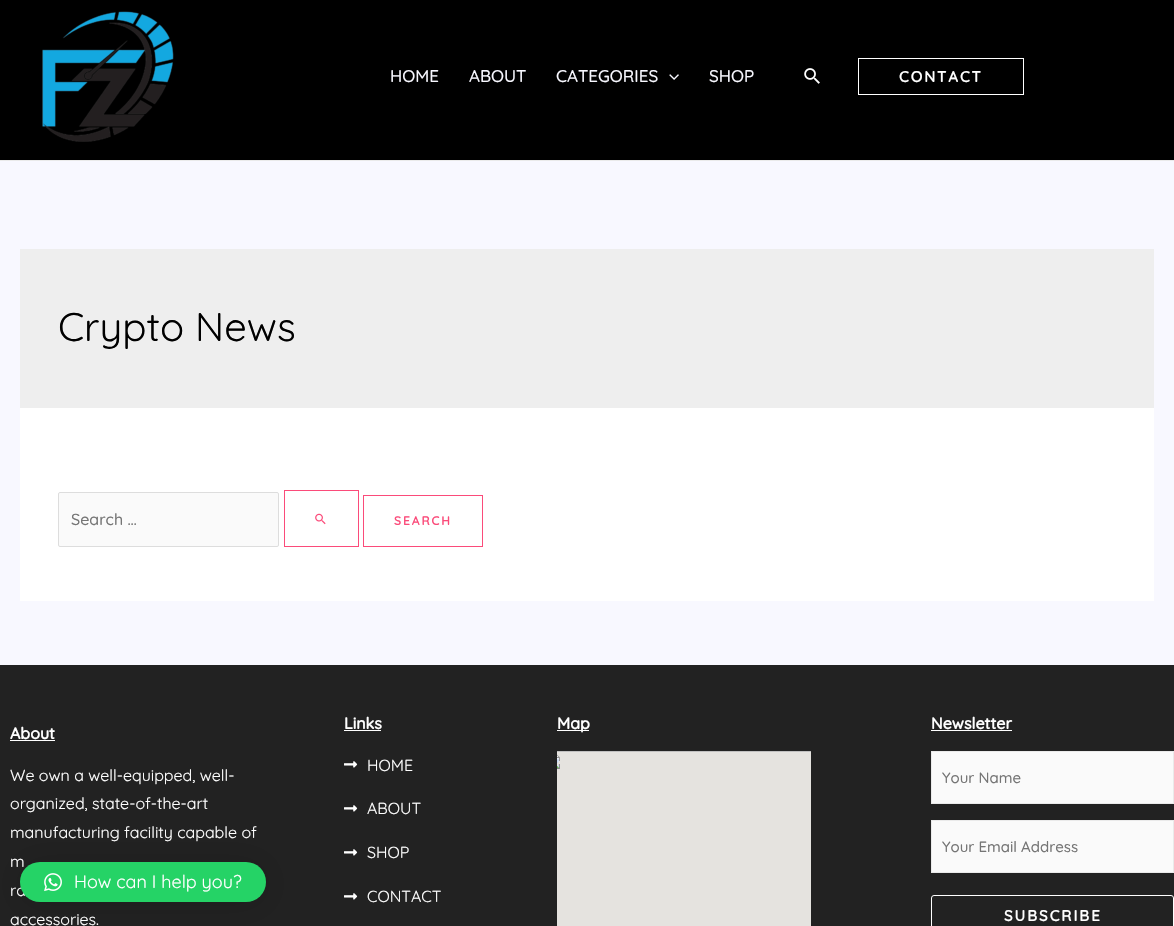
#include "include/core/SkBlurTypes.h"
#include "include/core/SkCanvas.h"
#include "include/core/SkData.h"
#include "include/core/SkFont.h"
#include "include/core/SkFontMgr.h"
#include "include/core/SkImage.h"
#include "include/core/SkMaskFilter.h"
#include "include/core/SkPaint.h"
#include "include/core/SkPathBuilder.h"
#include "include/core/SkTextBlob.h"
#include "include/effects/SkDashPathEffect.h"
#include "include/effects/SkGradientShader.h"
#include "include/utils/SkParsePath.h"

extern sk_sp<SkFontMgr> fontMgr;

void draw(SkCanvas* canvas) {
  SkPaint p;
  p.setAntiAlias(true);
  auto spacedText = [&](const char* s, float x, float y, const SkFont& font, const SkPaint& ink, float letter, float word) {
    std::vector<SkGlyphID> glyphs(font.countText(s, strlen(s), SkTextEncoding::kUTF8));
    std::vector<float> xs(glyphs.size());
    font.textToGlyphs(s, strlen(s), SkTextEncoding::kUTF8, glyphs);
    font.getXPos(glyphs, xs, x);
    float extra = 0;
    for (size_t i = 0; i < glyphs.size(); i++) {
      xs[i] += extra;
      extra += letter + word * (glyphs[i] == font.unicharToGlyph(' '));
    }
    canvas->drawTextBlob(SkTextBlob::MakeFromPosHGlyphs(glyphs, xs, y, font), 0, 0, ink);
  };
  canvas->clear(SkColorSetRGB(248, 248, 255));
  p.setColor(SK_ColorBLACK);
  canvas->drawRect(SkRect::MakeLTRB(0, 0, 1174, 160), p);
  p.setColor(SkColorSetRGB(234, 234, 234));
  canvas->drawRect(SkRect::MakeLTRB(0, 160, 1174, 161), p);
  canvas->drawImageRect(SkImages::DeferredFromEncodedData(SkData::MakeFromFileName("images/1.png")), SkRect::MakeLTRB(42, 11, 174, 142), SkSamplingOptions());
  canvas->drawImageRect(SkImages::DeferredFromEncodedData(SkData::MakeFromFileName("images/2.png")), SkRect::MakeLTRB(669, 74, 679, 80), SkSamplingOptions());
  canvas->drawImageRect(SkImages::DeferredFromEncodedData(SkData::MakeFromFileName("images/3.png")), SkRect::MakeLTRB(804, 68, 820, 84), SkSamplingOptions());
  p.setStyle(SkPaint::kStroke_Style);
  p.setStrokeWidth(1);
  p.setColor(SK_ColorWHITE);
  canvas->drawRect(SkRect::MakeLTRB(858.5f, 58.5f, 1023.5f, 94.5f), p);
  p.setStyle(SkPaint::kFill_Style);
  p.setColor(SkColorSetRGB(238, 238, 238));
  canvas->drawRect(SkRect::MakeLTRB(20, 249, 1154, 408), p);
  p.setColor(SK_ColorWHITE);
  canvas->drawRect(SkRect::MakeLTRB(20, 408, 1154, 601), p);
  p.setColor(SkColorSetRGB(250, 250, 250));
  canvas->drawRoundRect(SkRect::MakeLTRB(58.5f, 492.5f, 278.5f, 546.5f), 1.5f, 1.5f, p);
  p.setStyle(SkPaint::kStroke_Style);
  p.setColor(SkColorSetRGB(221, 221, 221));
  canvas->drawRoundRect(SkRect::MakeLTRB(58.5f, 492.5f, 278.5f, 546.5f), 1.5f, 1.5f, p);
  p.setColor(SkColorSetRGB(251, 75, 122));
  canvas->drawRect(SkRect::MakeLTRB(284.5f, 490.5f, 358.5f, 546.5f), p);
  canvas->drawImageRect(SkImages::DeferredFromEncodedData(SkData::MakeFromFileName("images/4.png")), SkRect::MakeLTRB(315, 513, 326, 525), SkSamplingOptions());
  canvas->drawRect(SkRect::MakeLTRB(363.5f, 495.5f, 482.5f, 546.5f), p);
  p.setStyle(SkPaint::kFill_Style);
  p.setColor(SkColorSetRGB(34, 34, 34));
  canvas->drawRect(SkRect::MakeLTRB(0, 665, 1174, 926), p);
  p.setColor(SK_ColorWHITE);
  canvas->drawRect(SkRect::MakeLTRB(10, 740, 55, 741), p);
  canvas->drawRect(SkRect::MakeLTRB(344, 730, 381, 731), p);
  canvas->drawImageRect(SkImages::DeferredFromEncodedData(SkData::MakeFromFileName("images/5.png")), SkRect::MakeLTRB(344, 761, 358, 768), SkSamplingOptions());
  canvas->drawImageRect(SkImages::DeferredFromEncodedData(SkData::MakeFromFileName("images/5.png")), SkRect::MakeLTRB(344, 805, 358, 812), SkSamplingOptions());
  canvas->drawImageRect(SkImages::DeferredFromEncodedData(SkData::MakeFromFileName("images/5.png")), SkRect::MakeLTRB(344, 849, 358, 856), SkSamplingOptions());
  canvas->drawImageRect(SkImages::DeferredFromEncodedData(SkData::MakeFromFileName("images/5.png")), SkRect::MakeLTRB(344, 893, 358, 900), SkSamplingOptions());
  canvas->drawRect(SkRect::MakeLTRB(557, 730, 589, 731), p);
  canvas->drawImageRect(SkImages::DeferredFromEncodedData(SkData::MakeFromFileName("images/6.png")), SkRect::MakeLTRB(557, 751, 811, 926), SkSamplingOptions());
  canvas->drawRect(SkRect::MakeLTRB(931, 730, 1012, 731), p);
  p.setColor(SkColorSetRGB(250, 250, 250));
  canvas->drawRect(SkRect::MakeLTRB(931.5f, 751.5f, 1173.5f, 803.5f), p);
  p.setStyle(SkPaint::kStroke_Style);
  p.setColor(SkColorSetRGB(234, 234, 234));
  canvas->drawRect(SkRect::MakeLTRB(931.5f, 751.5f, 1173.5f, 803.5f), p);
  p.setStyle(SkPaint::kFill_Style);
  p.setColor(SkColorSetRGB(250, 250, 250));
  canvas->drawRect(SkRect::MakeLTRB(931.5f, 820.5f, 1173.5f, 872.5f), p);
  p.setStyle(SkPaint::kStroke_Style);
  p.setColor(SkColorSetRGB(234, 234, 234));
  canvas->drawRect(SkRect::MakeLTRB(931.5f, 820.5f, 1173.5f, 872.5f), p);
  p.setColor(SK_ColorWHITE);
  canvas->drawRoundRect(SkRect::MakeLTRB(931.5f, 895.5f, 1173.5f, 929.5f), 2.5f, 2.5f, p);
  p.setStyle(SkPaint::kFill_Style);
  p.setColor(SkColorSetARGB(41, 0, 0, 0));
  p.setMaskFilter(SkMaskFilter::MakeBlur(kNormal_SkBlurStyle, 16));
  canvas->drawRoundRect(SkRect::MakeLTRB(20, 864, 266, 904), 20, 20, p);
  p.setMaskFilter(nullptr);
  SkFont font1(fontMgr->matchFamilyStyle("Quicksand", SkFontStyle(500, SkFontStyle::kNormal_Width, SkFontStyle::kUpright_Slant)), 17);
  font1.setSubpixel(true);
  p.setColor(SkColorSetRGB(248, 248, 255));
  canvas->drawString("HOME", 390, 82, font1, p);
  canvas->drawString("ABOUT", 469, 82, font1, p);
  canvas->drawString("CATEGORIES", 556, 82, font1, p);
  canvas->drawString("SHOP", 709, 82, font1, p);
  SkFont font2(fontMgr->matchFamilyStyle("Quicksand", SkFontStyle::Bold()), 15);
  font2.setSubpixel(true);
  p.setColor(SK_ColorWHITE);
  spacedText("CONTACT", 899, 82, font2, p, 2, 0);
  SkFont font3(fontMgr->matchFamilyStyle("Quicksand", SkFontStyle::Normal()), 40);
  font3.setSubpixel(true);
  p.setColor(SK_ColorBLACK);
  canvas->drawString("Crypto News", 58, 341, font3, p);
  SkFont font4(fontMgr->matchFamilyStyle("Quicksand", SkFontStyle(500, SkFontStyle::kNormal_Width, SkFontStyle::kUpright_Slant)), 16);
  font4.setSubpixel(true);
  p.setColor(SkColorSetRGB(117, 117, 117));
  canvas->drawString("Search …", 71, 525, font4, p);
  SkFont font5(fontMgr->matchFamilyStyle("Quicksand", SkFontStyle::Bold()), 12);
  font5.setSubpixel(true);
  p.setColor(SkColorSetRGB(251, 75, 122));
  spacedText("SEARCH", 394, 525, font5, p, 2, 0);
  SkFont font6(fontMgr->matchFamilyStyle("Quicksand", SkFontStyle::Bold()), 16);
  font6.setSubpixel(true);
  p.setColor(SK_ColorWHITE);
  canvas->drawString("About", 10, 739, font6, p);
  SkFont font7(fontMgr->matchFamilyStyle("Quicksand", SkFontStyle::Normal()), 16);
  font7.setSubpixel(true);
  canvas->drawString("We own a well-equipped, well-", 10, 781, font7, p);
  canvas->drawString("organized, state-of-the-art", 10, 809, font7, p);
  canvas->drawString("manufacturing facility capable of", 10, 838, font7, p);
  canvas->drawString("m", 10, 867, font7, p);
  canvas->drawString("ra", 10, 896, font7, p);
  canvas->drawString("accessories.", 10, 925, font7, p);
  canvas->drawString("Links", 344, 729, font6, p);
  canvas->drawString("HOME", 367, 771, font7, p);
  canvas->drawString("ABOUT", 367, 814, font7, p);
  canvas->drawString("SHOP", 367, 858, font7, p);
  canvas->drawString("CONTACT", 367, 902, font7, p);
  canvas->drawString("Map", 557, 729, font6, p);
  canvas->drawString("Newsletter", 931, 729, font6, p);
  SkFont font8(fontMgr->matchFamilyStyle("Quicksand", SkFontStyle(500, SkFontStyle::kNormal_Width, SkFontStyle::kUpright_Slant)), 15);
  font8.setSubpixel(true);
  p.setColor(SkColorSetRGB(117, 117, 117));
  canvas->drawString("Your Name", 942, 783, font8, p);
  canvas->drawString("Your Email Address", 942, 852, font8, p);
  p.setColor(SK_ColorWHITE);
  spacedText("SUBSCRIBE", 1004, 921, font2, p, 2, 0);
  p.setColor(SkColorSetRGB(37, 211, 102));
  canvas->drawRoundRect(SkRect::MakeLTRB(20, 862, 266, 902), 20, 20, p);
  canvas->drawImageRect(SkImages::DeferredFromEncodedData(SkData::MakeFromFileName("images/7.png")), SkRect::MakeLTRB(44, 873, 62, 892), SkSamplingOptions());
  SkFont font9(fontMgr->matchFamilyStyle("Quicksand", SkFontStyle::Normal()), 18);
  font9.setSubpixel(true);
  p.setColor(SK_ColorWHITE);
  canvas->drawString("How can I help you?", 74, 888, font9, p);
}
